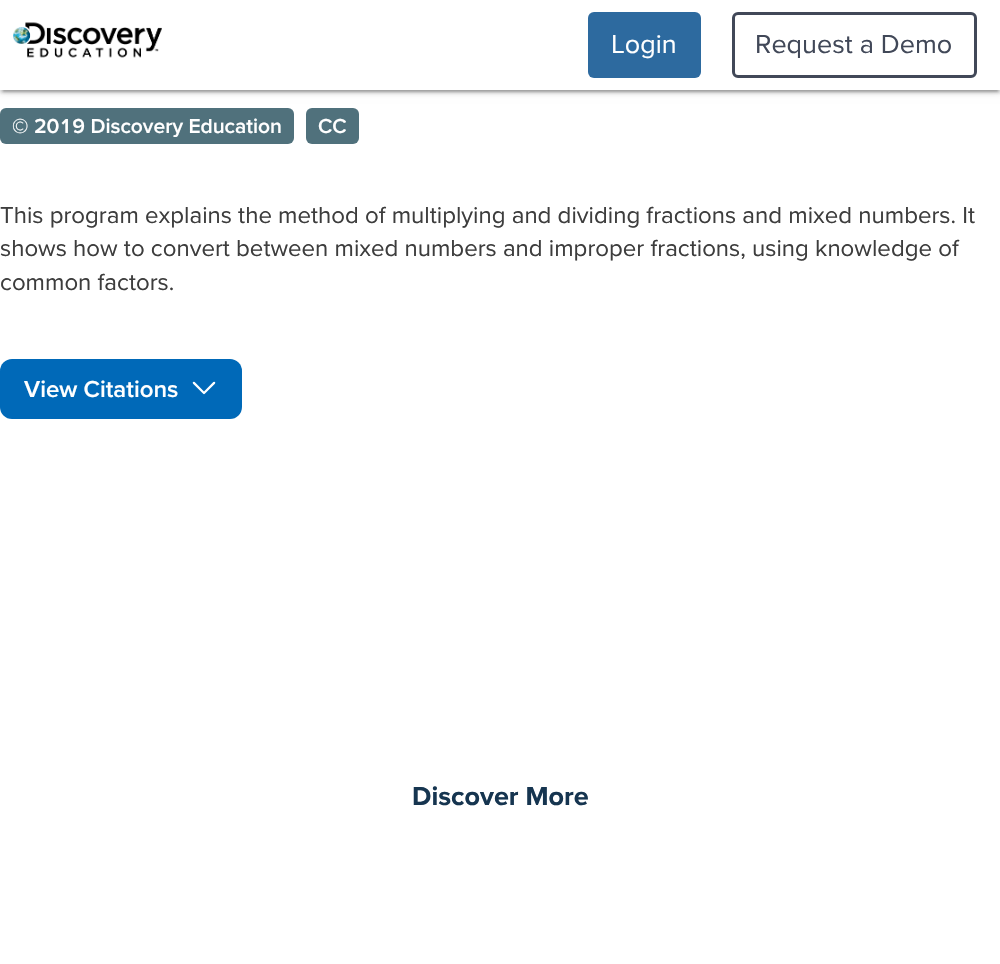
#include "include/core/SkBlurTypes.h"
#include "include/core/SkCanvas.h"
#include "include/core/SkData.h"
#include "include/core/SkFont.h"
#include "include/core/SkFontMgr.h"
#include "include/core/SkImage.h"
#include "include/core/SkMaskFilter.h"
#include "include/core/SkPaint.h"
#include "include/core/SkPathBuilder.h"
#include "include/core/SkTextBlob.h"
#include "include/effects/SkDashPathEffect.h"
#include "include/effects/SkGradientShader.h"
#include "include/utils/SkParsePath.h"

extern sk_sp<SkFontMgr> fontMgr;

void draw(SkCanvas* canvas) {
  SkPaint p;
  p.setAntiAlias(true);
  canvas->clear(SK_ColorWHITE);
  p.setColor(SkColorSetARGB(51, 0, 0, 0));
  p.setMaskFilter(SkMaskFilter::MakeBlur(kNormal_SkBlurStyle, 1));
  canvas->drawRect(SkRect::MakeLTRB(3, 8, 998, 92), p);
  p.setMaskFilter(nullptr);
  p.setColor(SkColorSetARGB(31, 0, 0, 0));
  p.setMaskFilter(SkMaskFilter::MakeBlur(kNormal_SkBlurStyle, 4));
  canvas->drawRect(SkRect::MakeLTRB(0, 2, 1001, 92), p);
  p.setMaskFilter(nullptr);
  p.setColor(SkColorSetARGB(36, 0, 0, 0));
  p.setMaskFilter(SkMaskFilter::MakeBlur(kNormal_SkBlurStyle, 1.5f));
  canvas->drawRect(SkRect::MakeLTRB(0, 3, 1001, 93), p);
  p.setMaskFilter(nullptr);
  p.setColor(SK_ColorWHITE);
  canvas->drawRect(SkRect::MakeLTRB(0, 0, 1000, 90), p);
  canvas->drawImageRect(SkImages::DeferredFromEncodedData(SkData::MakeFromFileName("images/1.png")), SkRect::MakeLTRB(13, 22, 162, 58), SkSamplingOptions());
  p.setColor(SkColorSetRGB(45, 106, 159));
  canvas->drawRoundRect(SkRect::MakeLTRB(588, 12, 701, 78), 6, 6, p);
  p.setStyle(SkPaint::kStroke_Style);
  p.setStrokeWidth(3);
  p.setColor(SkColorSetRGB(65, 72, 88));
  canvas->drawRoundRect(SkRect::MakeLTRB(733.5f, 13.5f, 975.5f, 76.5f), 4.5f, 4.5f, p);
  p.setStyle(SkPaint::kFill_Style);
  p.setColor(SkColorSetRGB(80, 113, 124));
  canvas->drawRoundRect(SkRect::MakeLTRB(0, 108, 294, 144), 6, 6, p);
  canvas->drawRoundRect(SkRect::MakeLTRB(306, 108, 359, 144), 6, 6, p);
  p.setColor(SkColorSetRGB(0, 105, 184));
  canvas->drawRoundRect(SkRect::MakeLTRB(0, 359, 242, 419), 12, 12, p);
  canvas->drawImageRect(SkImages::DeferredFromEncodedData(SkData::MakeFromFileName("images/2.png")), SkRect::MakeLTRB(192, 381, 216, 395), SkSamplingOptions());
  SkFont font1(fontMgr->matchFamilyStyle("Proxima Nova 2", SkFontStyle::Normal()), 27);
  font1.setSubpixel(true);
  p.setColor(SK_ColorWHITE);
  canvas->drawString("Login", 611, 53, font1, p);
  p.setColor(SkColorSetRGB(65, 72, 88));
  canvas->drawString("Request a Demo", 755, 53, font1, p);
  SkFont font2(fontMgr->matchFamilyStyle("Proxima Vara", SkFontStyle(600, SkFontStyle::kNormal_Width, SkFontStyle::kUpright_Slant)), 21);
  font2.setSubpixel(true);
  p.setColor(SK_ColorWHITE);
  canvas->drawString("© 2019 Discovery Education", 12, 133, font2, p);
  canvas->drawString("CC", 318, 133, font2, p);
  SkFont font3(fontMgr->matchFamilyStyle("Proxima Vara", SkFontStyle::Normal()), 24);
  font3.setSubpixel(true);
  p.setColor(SkColorSetRGB(61, 61, 61));
  canvas->drawString("This program explains the method of multiplying and dividing fractions and mixed numbers. It", 0, 223, font3, p);
  canvas->drawString("shows how to convert between mixed numbers and improper fractions, using knowledge of", 0, 256, font3, p);
  canvas->drawString("common factors.", 0, 290, font3, p);
  SkFont font4(fontMgr->matchFamilyStyle("Proxima Vara", SkFontStyle(600, SkFontStyle::kNormal_Width, SkFontStyle::kUpright_Slant)), 24);
  font4.setSubpixel(true);
  p.setColor(SK_ColorWHITE);
  canvas->drawString("View Citations", 24, 397, font4, p);
  SkFont font5(fontMgr->matchFamilyStyle("Proxima Nova", SkFontStyle::Normal()), 27);
  font5.setSubpixel(true);
  p.setColor(SkColorSetRGB(22, 53, 80));
  canvas->drawString("Discover More", 412, 805, font5, p);
}
